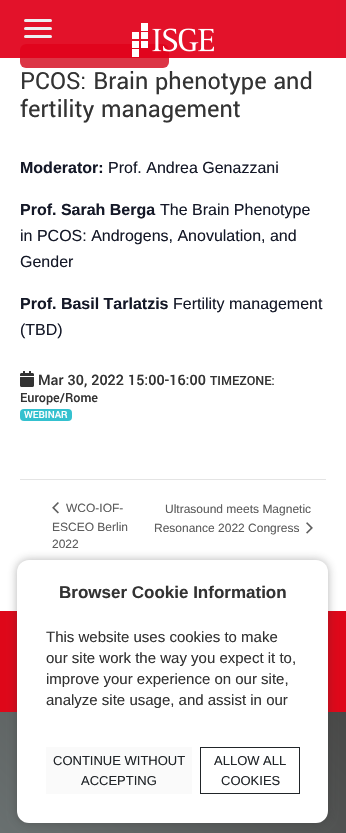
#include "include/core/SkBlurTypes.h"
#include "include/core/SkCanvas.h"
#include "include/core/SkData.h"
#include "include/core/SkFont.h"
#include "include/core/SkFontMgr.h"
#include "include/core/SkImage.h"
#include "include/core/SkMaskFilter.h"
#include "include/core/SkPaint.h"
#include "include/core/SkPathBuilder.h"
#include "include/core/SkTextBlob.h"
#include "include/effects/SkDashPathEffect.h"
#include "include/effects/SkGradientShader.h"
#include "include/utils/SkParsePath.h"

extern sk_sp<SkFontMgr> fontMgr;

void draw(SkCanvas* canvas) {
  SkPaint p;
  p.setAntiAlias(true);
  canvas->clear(SK_ColorWHITE);
  p.setColor(SkColorSetRGB(220, 53, 69));
  canvas->drawRoundRect(SkRect::MakeLTRB(20, 44, 169, 68), 6, 6, p);
  {
    const SkColor colors[] = {SkColorSetARGB(237, 225, 0, 26), SkColorSetARGB(230, 183, 11, 50)};
    const float stops[] = {0.48f, 1};
    const SkPoint ends[] = {{0, 29}, {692, 29}};
    p.setShader(SkGradientShader::MakeLinear(ends, colors, stops, 2, SkTileMode::kClamp));
    p.setAlpha(255);
  }
  canvas->drawRect(SkRect::MakeLTRB(0, 0, 346, 58), p);
  p.setShader(nullptr);
  p.setColor(SkColorSetRGB(236, 240, 241));
  canvas->drawRoundRect(SkRect::MakeLTRB(24, 19, 52, 22), 1.5f, 1.5f, p);
  canvas->drawRoundRect(SkRect::MakeLTRB(24, 27, 52, 30), 1.5f, 1.5f, p);
  canvas->drawRoundRect(SkRect::MakeLTRB(24, 35, 52, 38), 1.5f, 1.5f, p);
  canvas->drawImageRect(SkImages::DeferredFromEncodedData(SkData::MakeFromFileName("images/1.png")), SkRect::MakeLTRB(132, 23, 214, 57), SkSamplingOptions());
  canvas->drawImageRect(SkImages::DeferredFromEncodedData(SkData::MakeFromFileName("images/2.png")), SkRect::MakeLTRB(20, 371, 34, 387), SkSamplingOptions());
  p.setColor(SkColorSetRGB(52, 193, 207));
  canvas->drawRoundRect(SkRect::MakeLTRB(20, 409, 72, 421), 4, 4, p);
  p.setColor(SkColorSetRGB(228, 228, 228));
  canvas->drawRect(SkRect::MakeLTRB(20, 479, 326, 480), p);
  canvas->drawImageRect(SkImages::DeferredFromEncodedData(SkData::MakeFromFileName("images/3.png")), SkRect::MakeLTRB(52, 502, 59, 514), SkSamplingOptions());
  canvas->drawImageRect(SkImages::DeferredFromEncodedData(SkData::MakeFromFileName("images/4.png")), SkRect::MakeLTRB(306, 522, 313, 534), SkSamplingOptions());
  p.setColor(SkColorSetRGB(222, 7, 25));
  canvas->drawRect(SkRect::MakeLTRB(0, 611, 346, 712), p);
  {
    const SkColor colors[] = {SkColorSetRGB(105, 112, 112), SkColorSetRGB(72, 72, 71)};
    const float stops[] = {0, 1};
    const SkPoint ends[] = {{56, 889}, {290, 656}};
    p.setShader(SkGradientShader::MakeLinear(ends, colors, stops, 2, SkTileMode::kClamp));
    p.setAlpha(255);
  }
  canvas->drawRect(SkRect::MakeLTRB(0, 712, 346, 833), p);
  p.setShader(nullptr);
  p.setColor(SkColorSetARGB(94, 51, 51, 51));
  p.setMaskFilter(SkMaskFilter::MakeBlur(kNormal_SkBlurStyle, 5));
  canvas->drawRoundRect(SkRect::MakeLTRB(17, 560, 328, 823), 12, 12, p);
  p.setMaskFilter(nullptr);
  p.setColor(SK_ColorWHITE);
  canvas->drawRoundRect(SkRect::MakeLTRB(17, 560, 328, 823), 12, 12, p);
  p.setColor(SkColorSetRGB(250, 250, 250));
  canvas->drawRect(SkRect::MakeLTRB(46, 747, 192, 794), p);
  p.setStyle(SkPaint::kStroke_Style);
  p.setStrokeWidth(1);
  p.setColor(SkColorSetRGB(33, 37, 41));
  canvas->drawRect(SkRect::MakeLTRB(200.5f, 747.5f, 299.5f, 793.5f), p);
  SkFont font1(fontMgr->matchFamilyStyle("Yantramanav", SkFontStyle::Normal()), 26.1f);
  font1.setSubpixel(true);
  p.setStyle(SkPaint::kFill_Style);
  p.setColor(SkColorSetRGB(51, 51, 51));
  canvas->drawString("PCOS: Brain phenotype and", 20, 89, font1, p);
  canvas->drawString("fertility management", 20, 117, font1, p);
  SkFont font2(fontMgr->matchFamilyStyle("Liberation Sans", SkFontStyle::Bold()), 16);
  font2.setSubpixel(true);
  p.setColor(SkColorSetRGB(20, 24, 39));
  canvas->drawString("Moderator:", 20, 173, font2, p);
  SkFont font3(fontMgr->matchFamilyStyle("Liberation Sans", SkFontStyle::Normal()), 16);
  font3.setSubpixel(true);
  canvas->drawString("Prof. Andrea Genazzani", 108, 173, font3, p);
  canvas->drawString("Prof. Sarah Berga", 20, 215, font2, p);
  canvas->drawString("The Brain Phenotype", 160, 215, font3, p);
  canvas->drawString("in PCOS: Androgens, Anovulation, and", 20, 241, font3, p);
  canvas->drawString("Gender", 20, 267, font3, p);
  canvas->drawString("Prof. Basil Tarlatzis", 20, 309, font2, p);
  canvas->drawString("Fertility management", 173, 309, font3, p);
  canvas->drawString("(TBD)", 20, 335, font3, p);
  SkFont font4(fontMgr->matchFamilyStyle("Yantramanav", SkFontStyle(500, SkFontStyle::kNormal_Width, SkFontStyle::kUpright_Slant)), 16);
  font4.setSubpixel(true);
  p.setColor(SkColorSetRGB(51, 51, 51));
  canvas->drawString("Mar 30, 2022 15:00-16:00", 38, 385, font4, p);
  SkFont font5(fontMgr->matchFamilyStyle("Yantramanav", SkFontStyle(500, SkFontStyle::kNormal_Width, SkFontStyle::kUpright_Slant)), 14);
  font5.setSubpixel(true);
  canvas->drawString("TIMEZONE:", 210, 385, font5, p);
  canvas->drawString("Europe/Rome", 20, 402, font5, p);
  SkFont font6(fontMgr->matchFamilyStyle("Yantramanav", SkFontStyle(500, SkFontStyle::kNormal_Width, SkFontStyle::kUpright_Slant)), 11);
  font6.setSubpixel(true);
  p.setColor(SK_ColorWHITE);
  canvas->drawString("WEBINAR", 24, 418, font6, p);
  SkFont font7(fontMgr->matchFamilyStyle("Liberation Sans", SkFontStyle::Normal()), 12);
  font7.setSubpixel(true);
  p.setColor(SkColorSetRGB(93, 93, 93));
  canvas->drawString("WCO-IOF-", 66, 512, font7, p);
  canvas->drawString("ESCEO Berlin", 52, 531, font7, p);
  canvas->drawString("2022", 52, 548, font7, p);
  canvas->drawString("Ultrasound meets Magnetic", 165, 513, font7, p);
  canvas->drawString("Resonance 2022 Congress", 154, 532, font7, p);
  SkFont font8(fontMgr->matchFamilyStyle("Liberation Sans", SkFontStyle::Bold()), 17);
  font8.setSubpixel(true);
  p.setColor(SkColorSetRGB(51, 51, 51));
  canvas->drawString("Browser Cookie Information", 59, 598, font8, p);
  SkFont font9(fontMgr->matchFamilyStyle("Liberation Sans", SkFontStyle::Normal()), 15);
  font9.setSubpixel(true);
  canvas->drawString("This website uses cookies to make", 46, 642, font9, p);
  canvas->drawString("our site work the way you expect it to,", 46, 663, font9, p);
  canvas->drawString("improve your experience on our site,", 46, 684, font9, p);
  canvas->drawString("analyze site usage, and assist in our", 46, 705, font9, p);
  SkFont font10(fontMgr->matchFamilyStyle("Liberation Sans", SkFontStyle::Normal()), 13);
  font10.setSubpixel(true);
  p.setColor(SkColorSetRGB(33, 37, 41));
  canvas->drawString("CONTINUE WITHOUT", 53, 765, font10, p);
  canvas->drawString("ACCEPTING", 81, 785, font10, p);
  canvas->drawString("ALLOW ALL", 214, 765, font10, p);
  canvas->drawString("COOKIES", 221, 785, font10, p);
}
